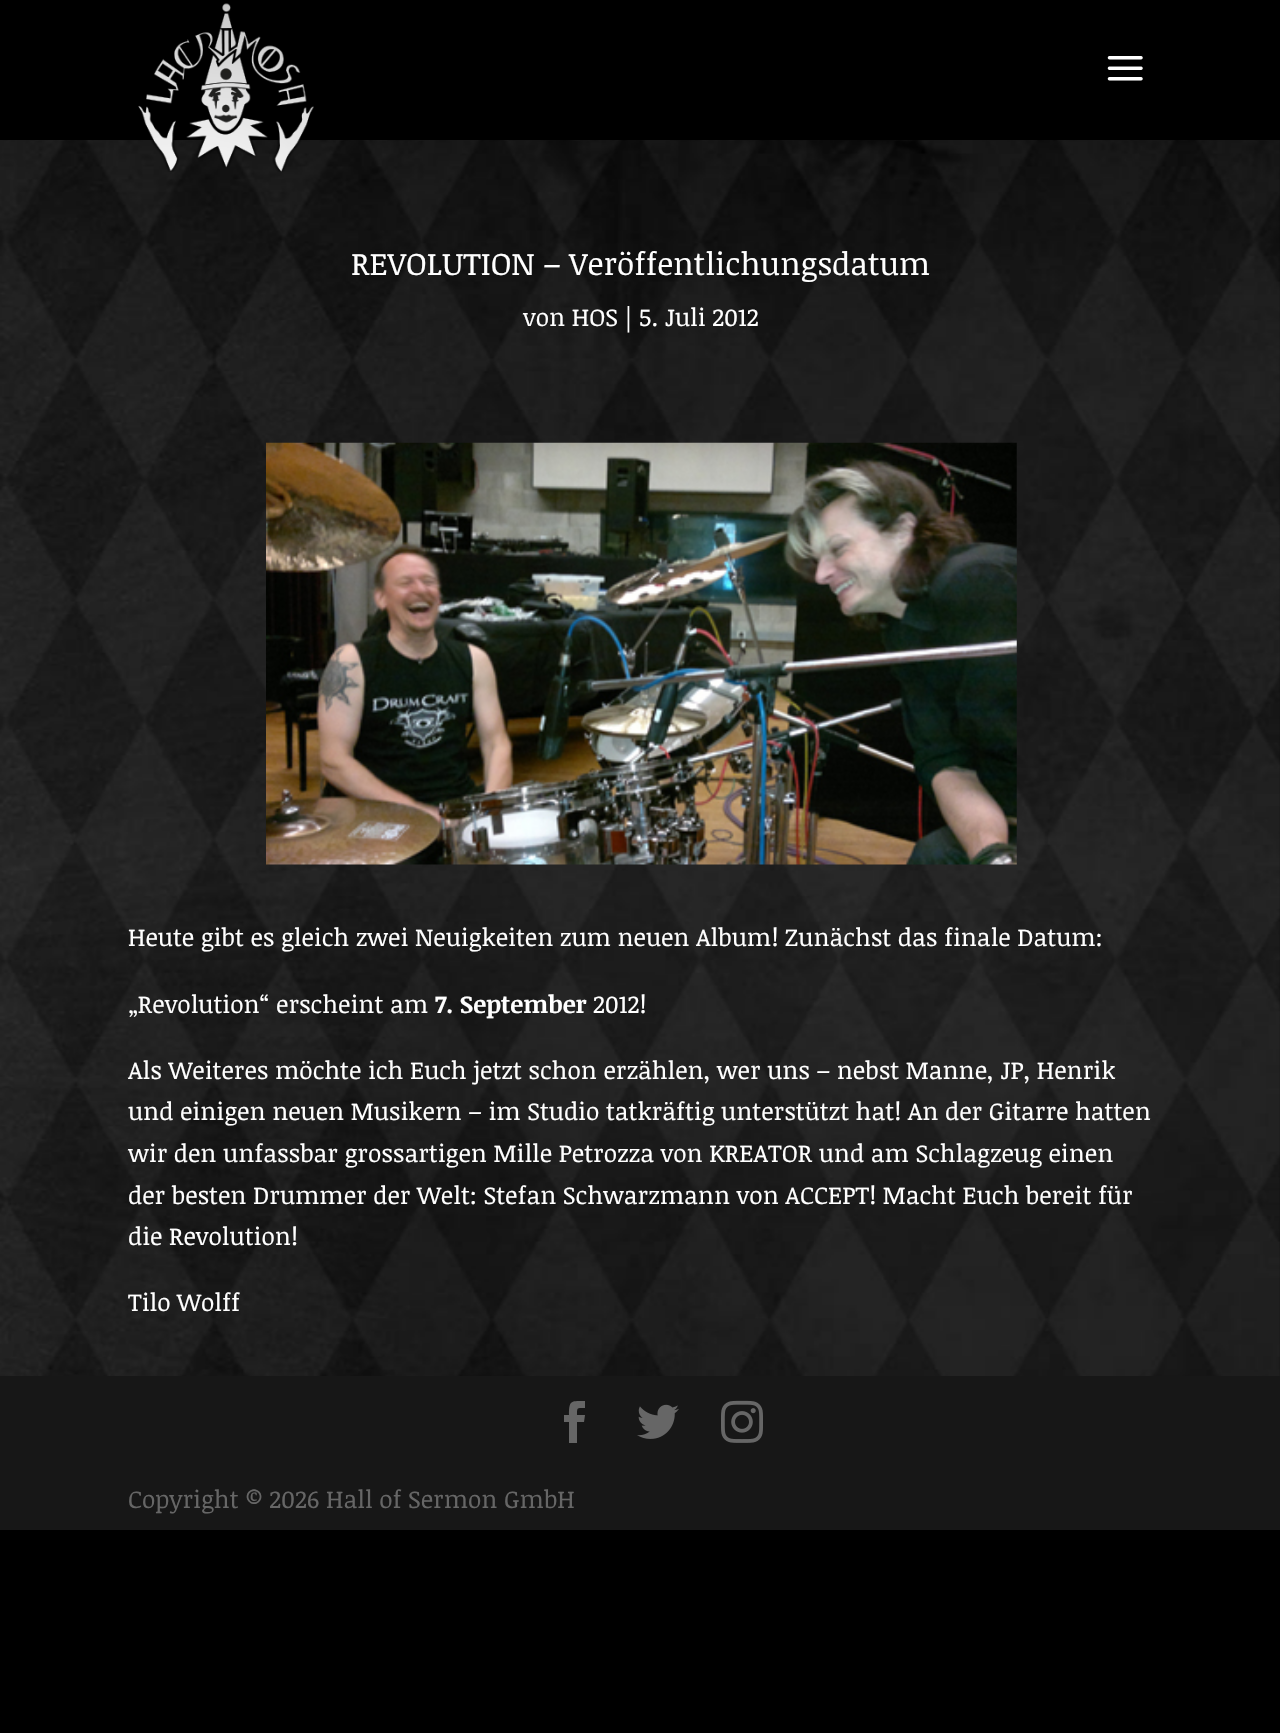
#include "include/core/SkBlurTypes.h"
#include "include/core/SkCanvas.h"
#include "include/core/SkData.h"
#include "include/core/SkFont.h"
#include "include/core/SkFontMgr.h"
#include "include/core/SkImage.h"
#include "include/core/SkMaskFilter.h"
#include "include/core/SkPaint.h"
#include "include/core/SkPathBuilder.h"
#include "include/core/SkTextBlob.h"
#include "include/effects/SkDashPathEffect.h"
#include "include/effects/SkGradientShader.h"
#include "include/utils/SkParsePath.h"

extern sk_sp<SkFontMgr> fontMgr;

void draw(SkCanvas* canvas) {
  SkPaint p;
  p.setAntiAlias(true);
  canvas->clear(SK_ColorBLACK);
  canvas->drawImageRect(SkImages::DeferredFromEncodedData(SkData::MakeFromFileName("images/3.png")), SkRect::MakeLTRB(0, 140, 1280, 1376), SkSamplingOptions());
  canvas->drawImageRect(SkImages::DeferredFromEncodedData(SkData::MakeFromFileName("images/1.png")), SkRect::MakeLTRB(138, 3, 314, 172), SkSamplingOptions());
  canvas->drawImageRect(SkImages::DeferredFromEncodedData(SkData::MakeFromFileName("images/2.png")), SkRect::MakeLTRB(1107, 56, 1143, 81), SkSamplingOptions());
  canvas->drawImageRect(SkImages::DeferredFromEncodedData(SkData::MakeFromFileName("images/4.png")), SkRect::MakeLTRB(266, 442, 1017, 865), SkSamplingOptions());
  p.setColor(SkColorSetRGB(23, 23, 23));
  canvas->drawRect(SkRect::MakeLTRB(0, 1376, 1280, 1530), p);
  p.setColor(SkColorSetRGB(102, 102, 102));
  canvas->drawPath(SkPathBuilder().moveTo(569, 1443).lineTo(577, 1443).lineTo(577, 1422).lineTo(584, 1422).lineTo(585, 1415).lineTo(577, 1415).cubicTo(577, 1407, 577, 1408, 585, 1408).lineTo(585, 1401).cubicTo(571, 1401, 569, 1400, 569, 1415).lineTo(564, 1415).lineTo(564, 1422).lineTo(569, 1422).close().detach(), p);
  canvas->drawImageRect(SkImages::DeferredFromEncodedData(SkData::MakeFromFileName("images/5.png")), SkRect::MakeLTRB(637, 1404, 679, 1439), SkSamplingOptions());
  canvas->drawImageRect(SkImages::DeferredFromEncodedData(SkData::MakeFromFileName("images/6.png")), SkRect::MakeLTRB(721, 1400, 763, 1443), SkSamplingOptions());
  SkFont font1(fontMgr->matchFamilyStyle("Noticia Text", SkFontStyle::Normal()), 31.5f);
  font1.setSubpixel(true);
  p.setColor(SK_ColorWHITE);
  canvas->drawString("REVOLUTION – Veröffentlichungsdatum", 351, 275, font1, p);
  SkFont font2(fontMgr->matchFamilyStyle("Noticia Text", SkFontStyle::Normal()), 24.5f);
  font2.setSubpixel(true);
  canvas->drawString("von HOS | 5. Juli 2012", 523, 326, font2, p);
  canvas->drawString("Heute gibt es gleich zwei Neuigkeiten zum neuen Album! Zunächst das finale Datum:", 128, 946, font2, p);
  canvas->drawString("„Revolution“ erscheint am", 128, 1013, font2, p);
  SkFont font3(fontMgr->matchFamilyStyle("Noticia Text", SkFontStyle::Bold()), 24.5f);
  font3.setSubpixel(true);
  canvas->drawString("7. September", 435, 1013, font3, p);
  canvas->drawString("2012!", 593, 1013, font2, p);
  canvas->drawString("Als Weiteres möchte ich Euch jetzt schon erzählen, wer uns – nebst Manne, JP, Henrik", 128, 1079, font2, p);
  canvas->drawString("und einigen neuen Musikern – im Studio tatkräftig unterstützt hat! An der Gitarre hatten", 128, 1120, font2, p);
  canvas->drawString("wir den unfassbar grossartigen Mille Petrozza von KREATOR und am Schlagzeug einen", 128, 1162, font2, p);
  canvas->drawString("der besten Drummer der Welt: Stefan Schwarzmann von ACCEPT! Macht Euch bereit für", 128, 1204, font2, p);
  canvas->drawString("die Revolution!", 128, 1245, font2, p);
  canvas->drawString("Tilo Wolff", 128, 1311, font2, p);
  p.setColor(SkColorSetRGB(102, 102, 102));
  canvas->drawString("Copyright © 2026 Hall of Sermon GmbH", 128, 1508, font2, p);
}
